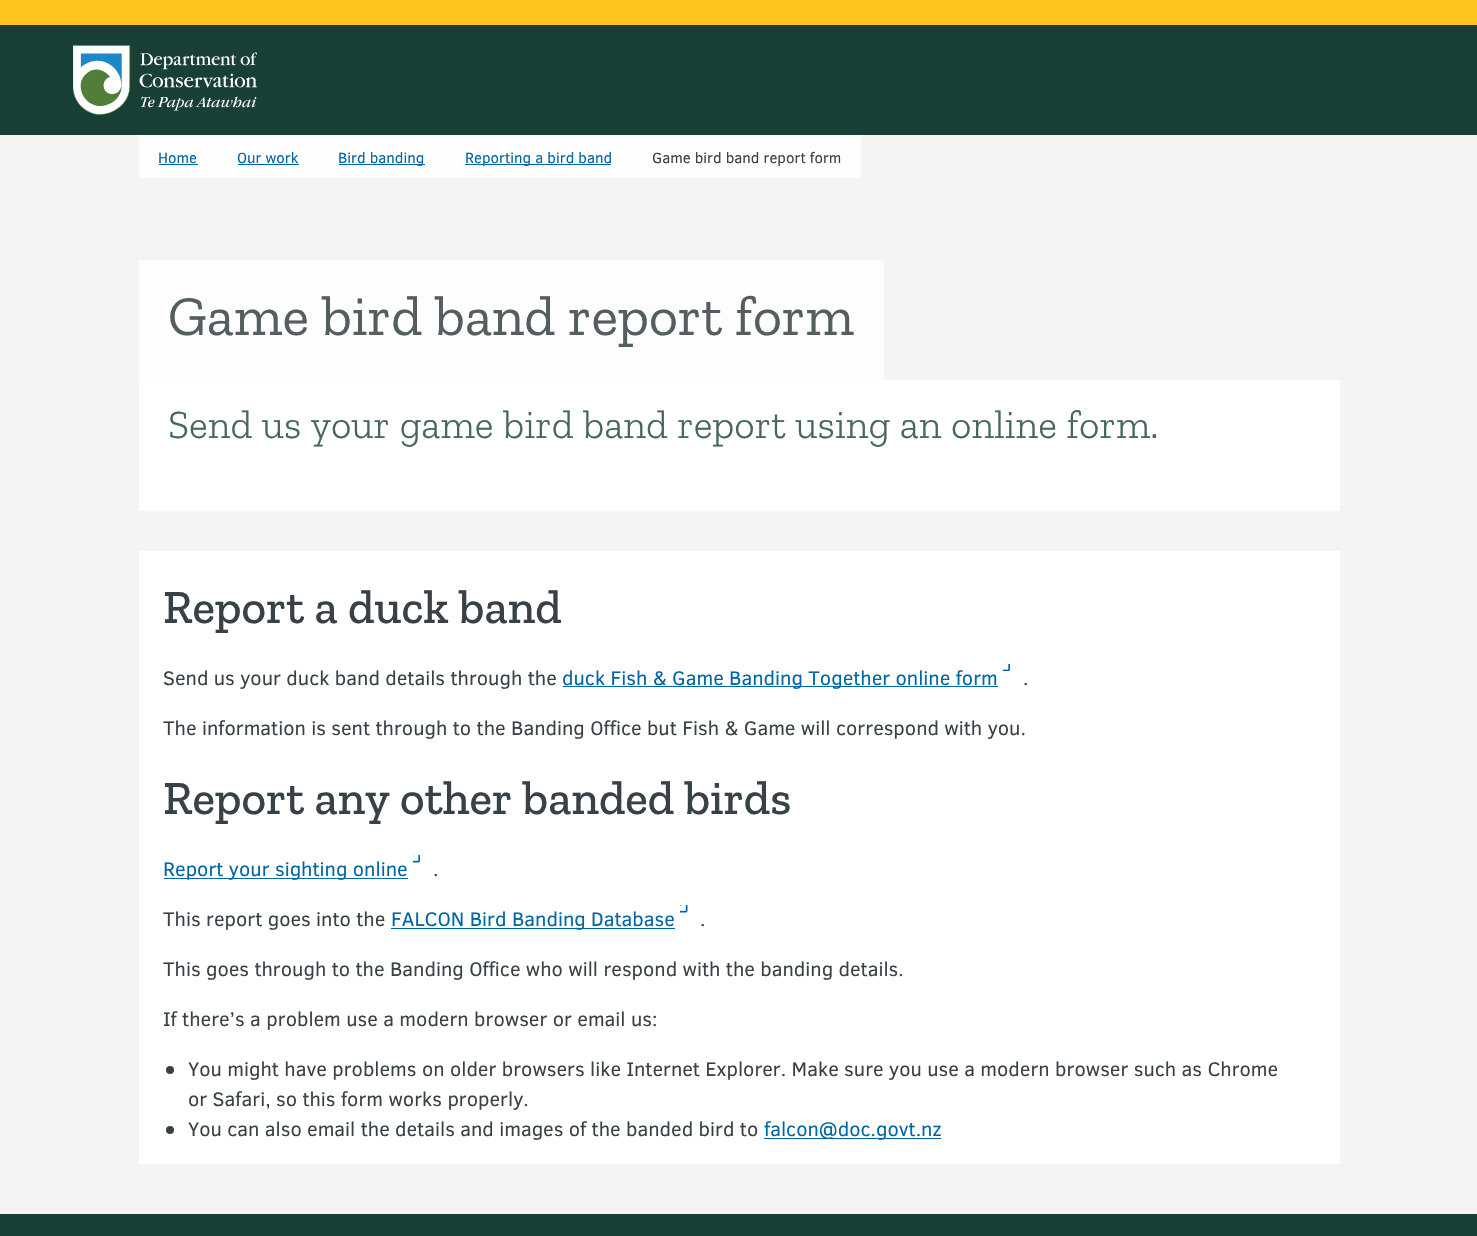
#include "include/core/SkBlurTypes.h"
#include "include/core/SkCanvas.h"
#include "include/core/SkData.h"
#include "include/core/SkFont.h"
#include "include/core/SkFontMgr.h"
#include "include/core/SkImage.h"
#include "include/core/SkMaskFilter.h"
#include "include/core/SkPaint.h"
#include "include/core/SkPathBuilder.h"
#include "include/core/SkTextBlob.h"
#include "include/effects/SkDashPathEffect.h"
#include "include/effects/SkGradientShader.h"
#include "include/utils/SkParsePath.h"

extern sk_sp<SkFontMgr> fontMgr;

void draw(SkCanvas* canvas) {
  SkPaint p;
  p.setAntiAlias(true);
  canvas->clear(SkColorSetRGB(245, 244, 242));
  p.setColor(SkColorSetRGB(255, 197, 29));
  canvas->drawRect(SkRect::MakeLTRB(0, 0, 1477, 25), p);
  p.setColor(SkColorSetRGB(25, 64, 54));
  canvas->drawRect(SkRect::MakeLTRB(0, 25, 1477, 135), p);
  canvas->drawImageRect(SkImages::DeferredFromEncodedData(SkData::MakeFromFileName("images/1.png")), SkRect::MakeLTRB(73, 45, 257, 115), SkSamplingOptions());
  p.setColor(SkColorSetRGB(254, 253, 253));
  canvas->drawRect(SkRect::MakeLTRB(139, 135, 861, 178), p);
  p.setColor(SkColorSetRGB(0, 102, 164));
  canvas->drawRect(SkRect::MakeLTRB(159, 164, 198, 165), p);
  canvas->drawRect(SkRect::MakeLTRB(238, 164, 299, 165), p);
  canvas->drawRect(SkRect::MakeLTRB(339, 164, 425, 165), p);
  canvas->drawRect(SkRect::MakeLTRB(465, 164, 611, 165), p);
  p.setColor(SkColorSetRGB(253, 253, 253));
  canvas->drawRect(SkRect::MakeLTRB(139, 260, 884, 380), p);
  p.setColor(SK_ColorWHITE);
  canvas->drawRect(SkRect::MakeLTRB(139, 380, 1340, 511), p);
  canvas->drawRect(SkRect::MakeLTRB(139, 551, 1340, 1164), p);
  canvas->drawImageRect(SkImages::DeferredFromEncodedData(SkData::MakeFromFileName("images/2.png")), SkRect::MakeLTRB(1003, 664, 1010, 671), SkSamplingOptions());
  p.setColor(SkColorSetRGB(0, 102, 164));
  canvas->drawRect(SkRect::MakeLTRB(563, 686, 998, 687), p);
  canvas->drawImageRect(SkImages::DeferredFromEncodedData(SkData::MakeFromFileName("images/3.png")), SkRect::MakeLTRB(413, 855, 420, 863), SkSamplingOptions());
  canvas->drawRect(SkRect::MakeLTRB(164, 878, 408, 879), p);
  canvas->drawImageRect(SkImages::DeferredFromEncodedData(SkData::MakeFromFileName("images/4.png")), SkRect::MakeLTRB(680, 905, 688, 913), SkSamplingOptions());
  canvas->drawRect(SkRect::MakeLTRB(391, 928, 675, 929), p);
  p.setColor(SkColorSetRGB(56, 66, 70));
  canvas->drawCircle(170, 1070, 4, p);
  canvas->drawCircle(170, 1130, 4, p);
  p.setColor(SkColorSetRGB(0, 102, 164));
  canvas->drawRect(SkRect::MakeLTRB(764, 1138, 941, 1139), p);
  p.setColor(SkColorSetRGB(25, 64, 54));
  canvas->drawRect(SkRect::MakeLTRB(0, 1214, 1477, 1236), p);
  SkFont font1(fontMgr->matchFamilyStyle("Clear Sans", SkFontStyle::Normal()), 15);
  font1.setSubpixel(true);
  p.setColor(SkColorSetRGB(0, 102, 164));
  canvas->drawString("Home", 158, 163, font1, p);
  canvas->drawString("Our work", 237, 163, font1, p);
  canvas->drawString("Bird banding", 338, 163, font1, p);
  canvas->drawString("Reporting a bird band", 465, 163, font1, p);
  p.setColor(SkColorSetRGB(56, 66, 70));
  canvas->drawString("Game bird band report form", 652, 163, font1, p);
  SkFont font2(fontMgr->matchFamilyStyle("Zilla Slab", SkFontStyle::Normal()), 56.25f);
  font2.setSubpixel(true);
  p.setColor(SkColorSetRGB(84, 93, 96));
  canvas->drawString("Game bird band report form", 168, 335, font2, p);
  SkFont font3(fontMgr->matchFamilyStyle("Zilla Slab", SkFontStyle(300, SkFontStyle::kNormal_Width, SkFontStyle::kUpright_Slant)), 40);
  font3.setSubpixel(true);
  p.setColor(SkColorSetRGB(71, 102, 94));
  canvas->drawString("Send us your game bird band report using an online form.", 168, 438, font3, p);
  SkFont font4(fontMgr->matchFamilyStyle("Zilla Slab", SkFontStyle(500, SkFontStyle::kNormal_Width, SkFontStyle::kUpright_Slant)), 47.5f);
  font4.setSubpixel(true);
  p.setColor(SkColorSetRGB(56, 66, 70));
  canvas->drawString("Report a duck band", 163, 623, font4, p);
  SkFont font5(fontMgr->matchFamilyStyle("Clear Sans", SkFontStyle::Normal()), 20);
  font5.setSubpixel(true);
  canvas->drawString("Send us your duck band details through the", 163, 685, font5, p);
  p.setColor(SkColorSetRGB(0, 102, 164));
  canvas->drawString("duck Fish & Game Banding Together online form", 562, 685, font5, p);
  p.setColor(SkColorSetRGB(56, 66, 70));
  canvas->drawString(".", 1023, 685, font5, p);
  canvas->drawString("The information is sent through to the Banding Office but Fish & Game will correspond with you.", 163, 735, font5, p);
  canvas->drawString("Report any other banded birds", 163, 814, font4, p);
  p.setColor(SkColorSetRGB(0, 102, 164));
  canvas->drawString("Report your sighting online", 163, 876, font5, p);
  p.setColor(SkColorSetRGB(56, 66, 70));
  canvas->drawString(".", 433, 876, font5, p);
  canvas->drawString("This report goes into the", 163, 926, font5, p);
  p.setColor(SkColorSetRGB(0, 102, 164));
  canvas->drawString("FALCON Bird Banding Database", 391, 926, font5, p);
  p.setColor(SkColorSetRGB(56, 66, 70));
  canvas->drawString(".", 700, 926, font5, p);
  canvas->drawString("This goes through to the Banding Office who will respond with the banding details.", 163, 976, font5, p);
  canvas->drawString("If there’s a problem use a modern browser or email us:", 163, 1026, font5, p);
  canvas->drawString("You might have problems on older browsers like Internet Explorer. Make sure you use a modern browser such as Chrome", 188, 1076, font5, p);
  canvas->drawString("or Safari, so this form works properly.", 188, 1106, font5, p);
  canvas->drawString("You can also email the details and images of the banded bird to", 188, 1136, font5, p);
  p.setColor(SkColorSetRGB(0, 102, 164));
  canvas->drawString("falcon@doc.govt.nz", 764, 1136, font5, p);
}
